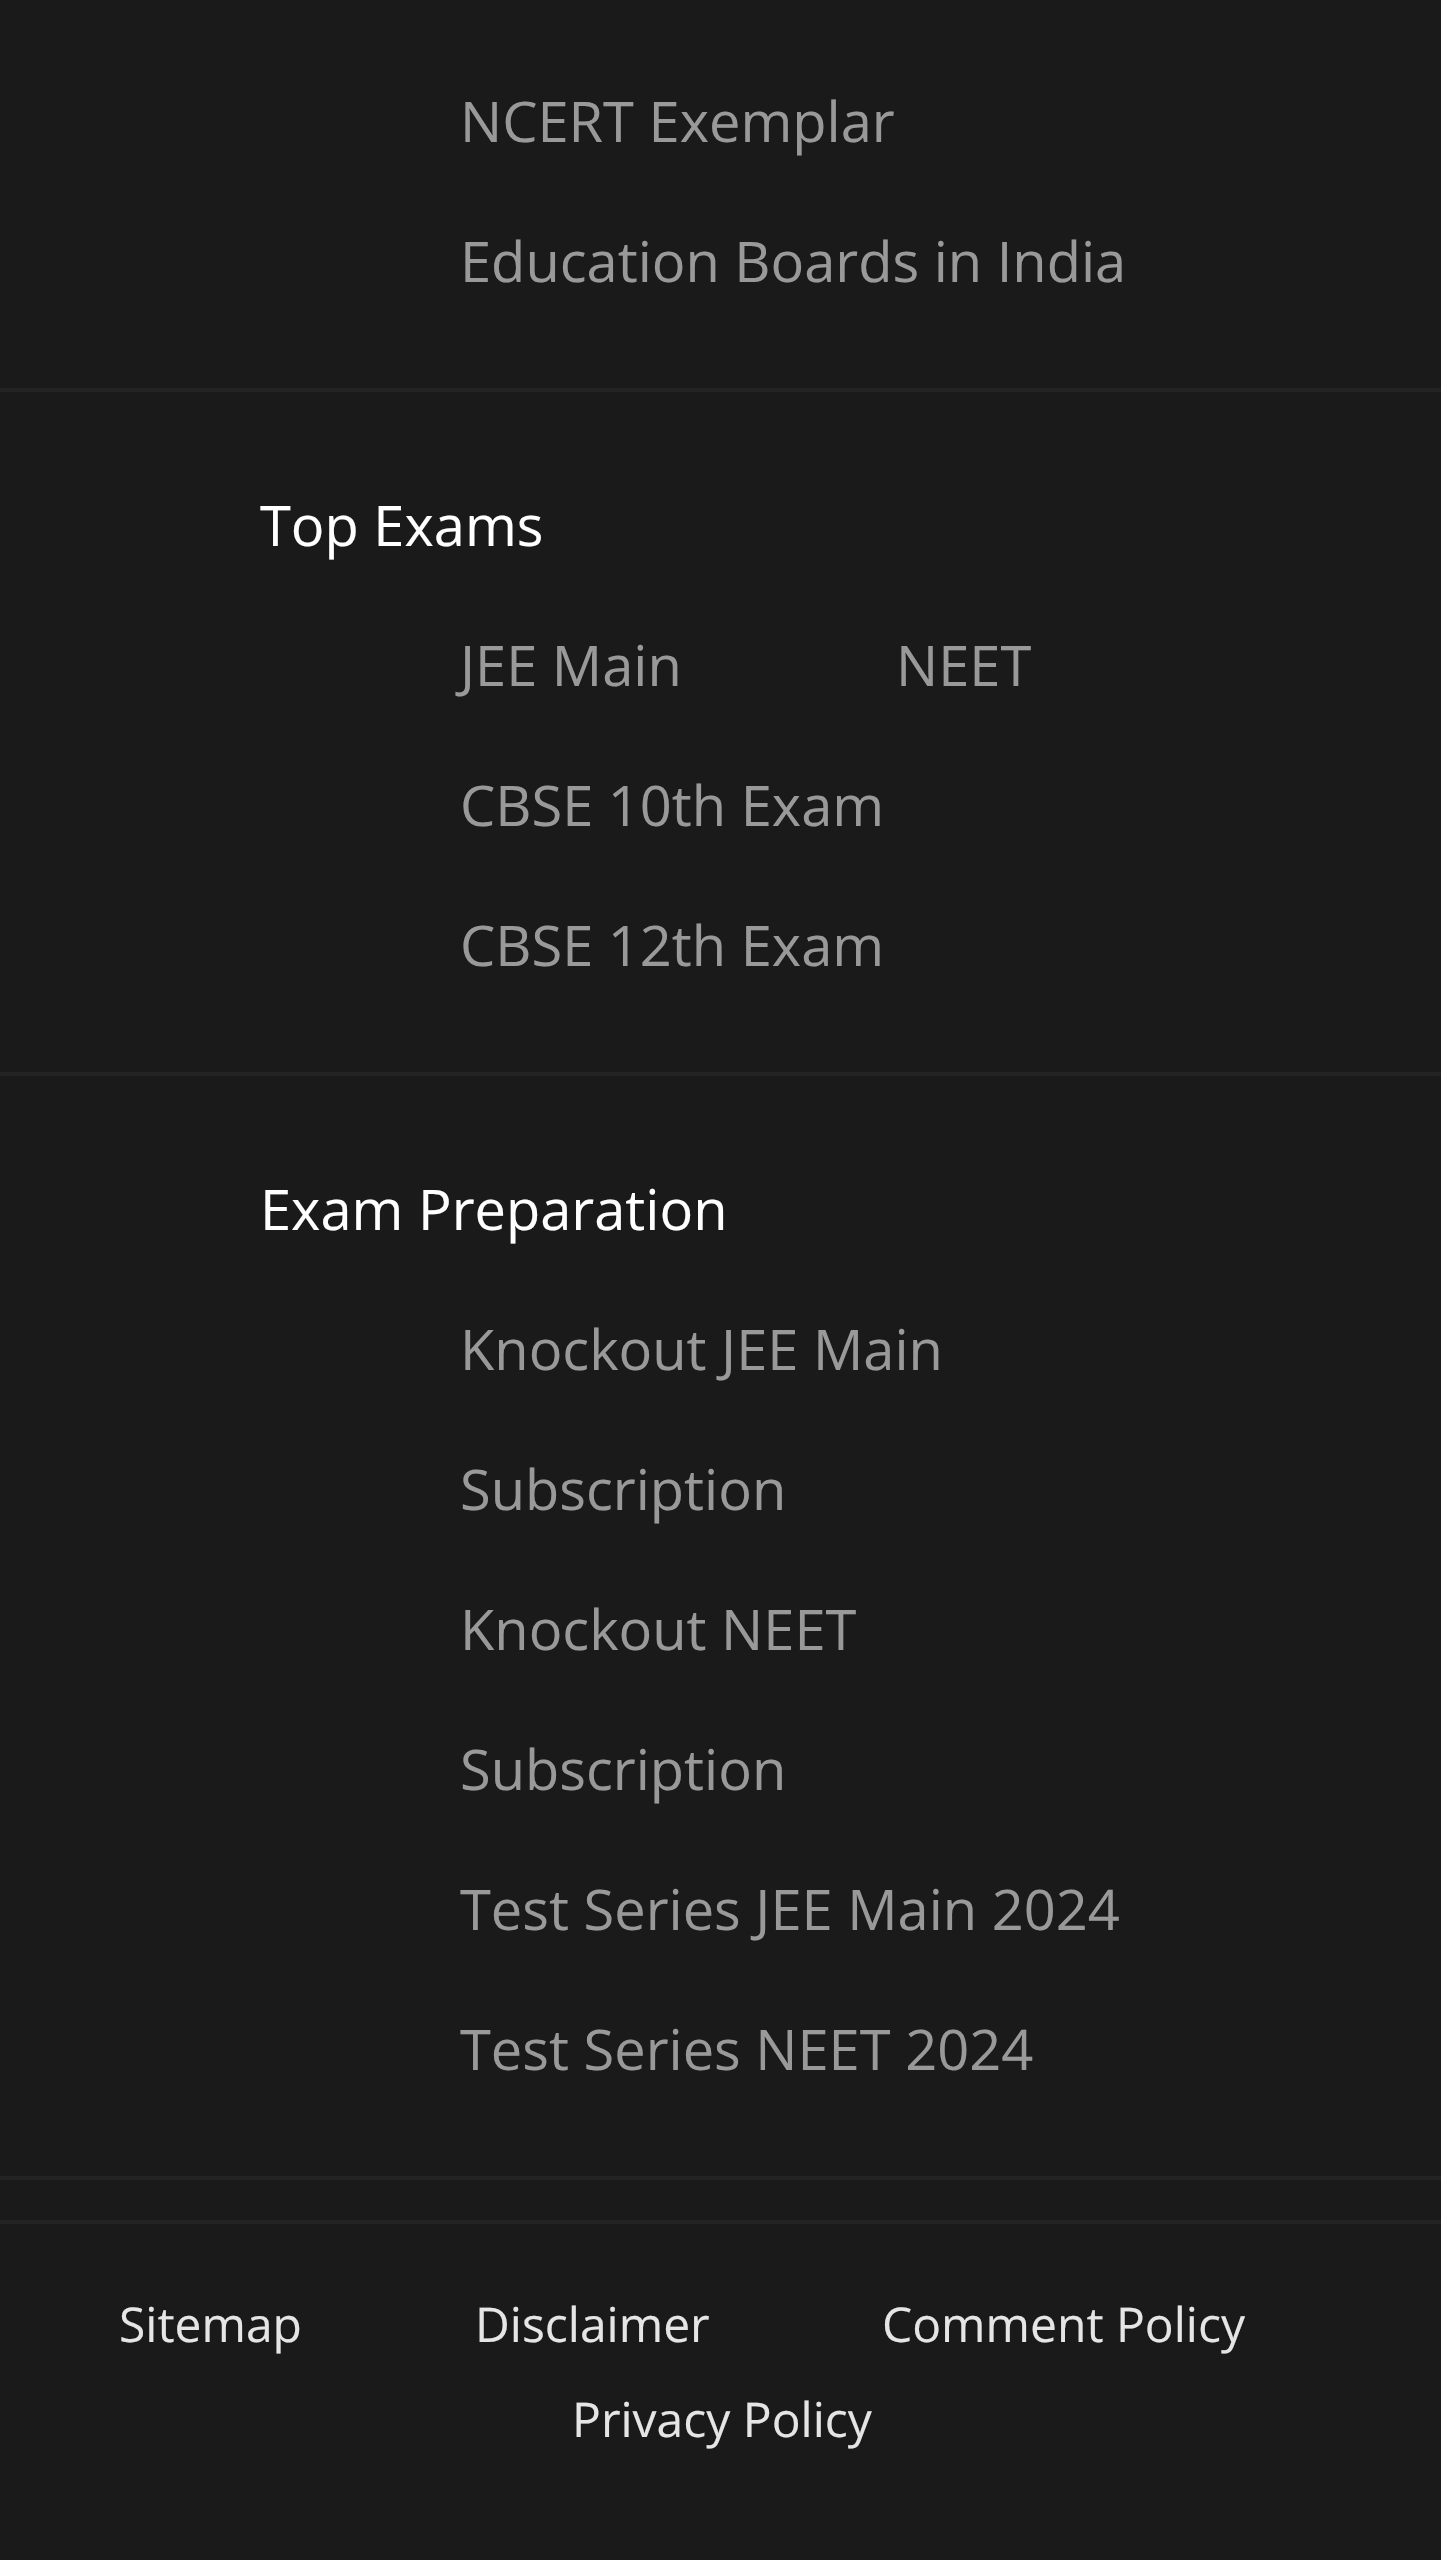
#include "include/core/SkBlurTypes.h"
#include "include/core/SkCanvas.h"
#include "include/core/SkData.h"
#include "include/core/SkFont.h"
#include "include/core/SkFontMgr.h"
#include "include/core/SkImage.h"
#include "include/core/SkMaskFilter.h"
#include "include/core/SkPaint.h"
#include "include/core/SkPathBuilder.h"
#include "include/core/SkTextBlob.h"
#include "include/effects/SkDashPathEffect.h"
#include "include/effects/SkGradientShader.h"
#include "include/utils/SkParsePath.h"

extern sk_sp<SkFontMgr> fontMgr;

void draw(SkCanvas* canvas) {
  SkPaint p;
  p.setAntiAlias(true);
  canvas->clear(SkColorSetRGB(26, 26, 26));
  p.setColor(SkColorSetRGB(35, 35, 35));
  canvas->drawRect(SkRect::MakeLTRB(0, 2176, 1441, 2180), p);
  canvas->drawRect(SkRect::MakeLTRB(0, 388, 1441, 392), p);
  canvas->drawRect(SkRect::MakeLTRB(0, 1072, 1441, 1076), p);
  canvas->drawRect(SkRect::MakeLTRB(0, 2220, 1441, 2224), p);
  SkFont font1(fontMgr->matchFamilyStyle("Open Sans", SkFontStyle::Normal()), 56);
  font1.setSubpixel(true);
  p.setColor(SkColorSetRGB(153, 153, 153));
  canvas->drawString("NCERT Exemplar", 460, 142, font1, p);
  canvas->drawString("Education Boards in India", 460, 282, font1, p);
  p.setColor(SK_ColorWHITE);
  canvas->drawString("Top Exams", 260, 546, font1, p);
  p.setColor(SkColorSetRGB(153, 153, 153));
  canvas->drawString("JEE Main", 460, 686, font1, p);
  canvas->drawString("NEET", 896, 686, font1, p);
  canvas->drawString("CBSE 10th Exam", 460, 826, font1, p);
  canvas->drawString("CBSE 12th Exam", 460, 966, font1, p);
  p.setColor(SK_ColorWHITE);
  canvas->drawString("Exam Preparation", 260, 1230, font1, p);
  p.setColor(SkColorSetRGB(153, 153, 153));
  canvas->drawString("Knockout JEE Main", 460, 1370, font1, p);
  canvas->drawString("Subscription", 460, 1510, font1, p);
  canvas->drawString("Knockout NEET", 460, 1650, font1, p);
  canvas->drawString("Subscription", 460, 1790, font1, p);
  canvas->drawString("Test Series JEE Main 2024", 460, 1930, font1, p);
  canvas->drawString("Test Series NEET 2024", 460, 2070, font1, p);
  SkFont font2(fontMgr->matchFamilyStyle("Open Sans", SkFontStyle::Normal()), 48);
  font2.setSubpixel(true);
  p.setColor(SkColorSetRGB(229, 229, 229));
  canvas->drawString("Sitemap", 119, 2342, font2, p);
  canvas->drawString("Disclaimer", 475, 2342, font2, p);
  canvas->drawString("Comment Policy", 882, 2342, font2, p);
  canvas->drawString("Privacy Policy", 572, 2437, font2, p);
}
